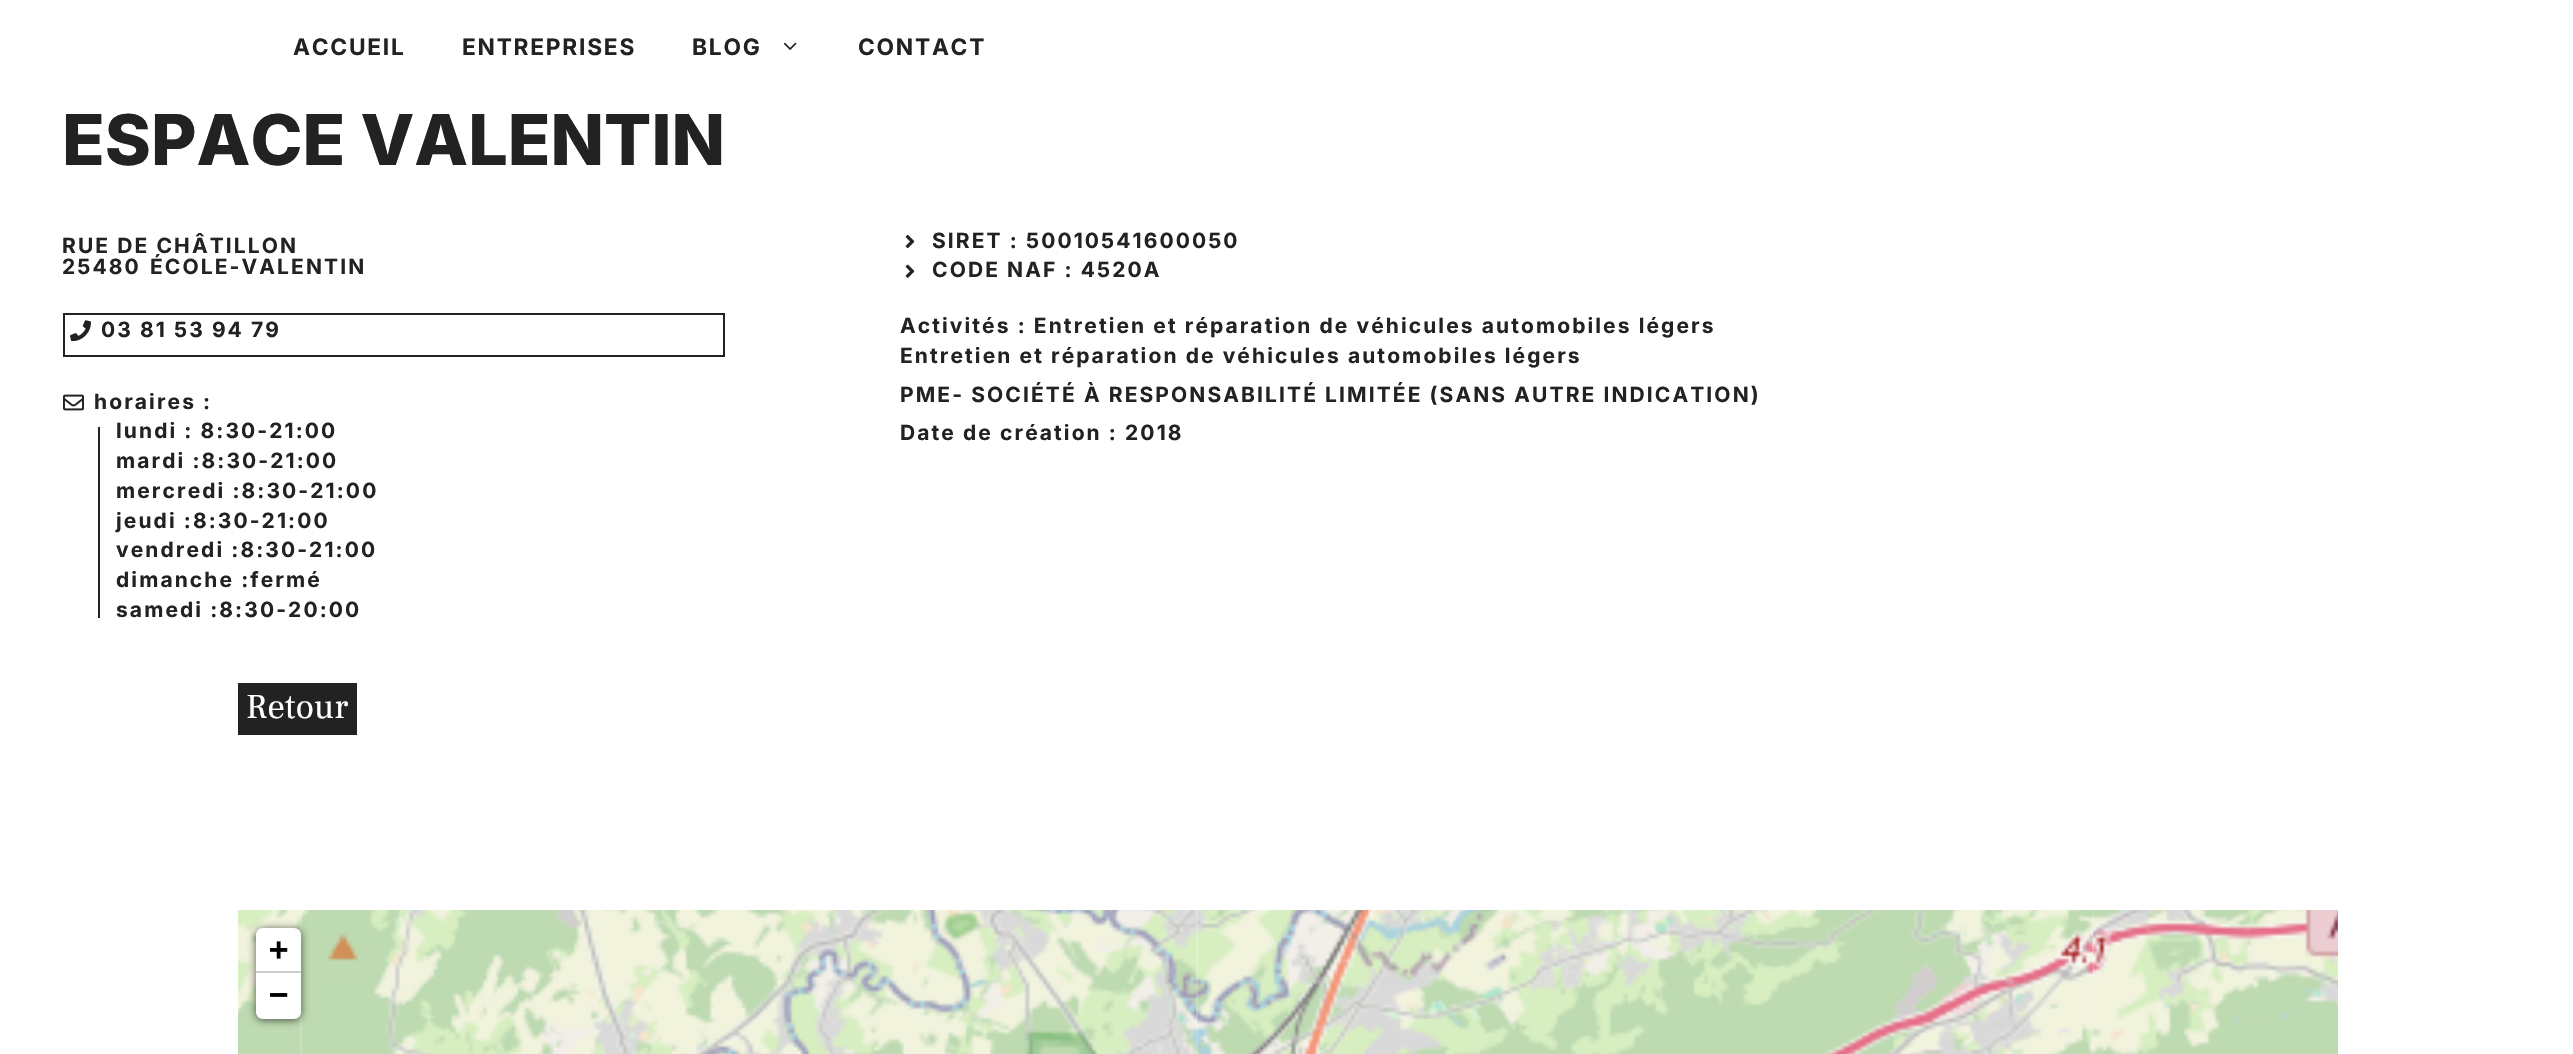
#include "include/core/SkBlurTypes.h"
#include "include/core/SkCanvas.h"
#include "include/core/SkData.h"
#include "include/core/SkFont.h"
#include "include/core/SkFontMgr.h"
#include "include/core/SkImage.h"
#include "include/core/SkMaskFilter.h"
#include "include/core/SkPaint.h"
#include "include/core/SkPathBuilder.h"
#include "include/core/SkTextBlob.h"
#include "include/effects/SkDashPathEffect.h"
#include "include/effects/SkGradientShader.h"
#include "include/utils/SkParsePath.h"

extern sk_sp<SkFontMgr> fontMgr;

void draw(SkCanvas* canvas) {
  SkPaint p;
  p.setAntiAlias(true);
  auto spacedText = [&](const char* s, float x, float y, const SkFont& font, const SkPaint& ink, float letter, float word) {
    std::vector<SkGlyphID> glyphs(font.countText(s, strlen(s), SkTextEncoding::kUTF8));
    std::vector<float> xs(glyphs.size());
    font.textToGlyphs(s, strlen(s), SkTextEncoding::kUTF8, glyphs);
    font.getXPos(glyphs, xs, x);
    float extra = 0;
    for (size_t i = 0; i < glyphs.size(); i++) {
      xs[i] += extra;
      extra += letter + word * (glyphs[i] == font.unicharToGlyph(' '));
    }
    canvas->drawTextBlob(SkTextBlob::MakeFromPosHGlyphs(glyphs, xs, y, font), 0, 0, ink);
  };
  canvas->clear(SK_ColorWHITE);
  canvas->drawImageRect(SkImages::DeferredFromEncodedData(SkData::MakeFromFileName("images/1.png")), SkRect::MakeLTRB(783, 42, 797, 50), SkSamplingOptions());
  p.setStyle(SkPaint::kStroke_Style);
  p.setStrokeWidth(2);
  p.setColor(SkColorSetRGB(34, 34, 34));
  canvas->drawRect(SkRect::MakeLTRB(64, 314, 724, 356), p);
  canvas->drawImageRect(SkImages::DeferredFromEncodedData(SkData::MakeFromFileName("images/2.png")), SkRect::MakeLTRB(70, 320, 91, 341), SkSamplingOptions());
  canvas->drawImageRect(SkImages::DeferredFromEncodedData(SkData::MakeFromFileName("images/3.png")), SkRect::MakeLTRB(63, 394, 84, 411), SkSamplingOptions());
  p.setStyle(SkPaint::kFill_Style);
  canvas->drawRect(SkRect::MakeLTRB(98, 427, 100, 618), p);
  canvas->drawImageRect(SkImages::DeferredFromEncodedData(SkData::MakeFromFileName("images/4.png")), SkRect::MakeLTRB(905, 234, 915, 248), SkSamplingOptions());
  canvas->drawImageRect(SkImages::DeferredFromEncodedData(SkData::MakeFromFileName("images/5.png")), SkRect::MakeLTRB(905, 264, 915, 278), SkSamplingOptions());
  canvas->drawRect(SkRect::MakeLTRB(238, 683, 357, 735), p);
  canvas->drawImageRect(SkImages::DeferredFromEncodedData(SkData::MakeFromFileName("images/7.png")), SkRect::MakeLTRB(300, 910, 1197, 1054), SkSamplingOptions());
  canvas->drawImageRect(SkImages::DeferredFromEncodedData(SkData::MakeFromFileName("images/6.png")), SkRect::MakeLTRB(238, 910, 301, 1054), SkSamplingOptions());
  canvas->drawImageRect(SkImages::DeferredFromEncodedData(SkData::MakeFromFileName("images/8.png")), SkRect::MakeLTRB(1196, 910, 2093, 1054), SkSamplingOptions());
  canvas->drawImageRect(SkImages::DeferredFromEncodedData(SkData::MakeFromFileName("images/9.png")), SkRect::MakeLTRB(2092, 910, 2338, 1054), SkSamplingOptions());
  p.setColor(SkColorSetARGB(166, 0, 0, 0));
  p.setMaskFilter(SkMaskFilter::MakeBlur(kNormal_SkBlurStyle, 4.5f));
  canvas->drawRoundRect(SkRect::MakeLTRB(256, 929, 301, 1020), 7, 7, p);
  p.setMaskFilter(nullptr);
  p.setColor(SK_ColorWHITE);
  canvas->drawPath(SkPathBuilder().moveTo(263, 928).lineTo(294, 928).cubicTo(298, 928, 301, 931, 301, 935).lineTo(301, 973).lineTo(256, 973).lineTo(256, 935).cubicTo(256, 931, 259, 928, 263, 928).close().detach(), p);
  p.setColor(SkColorSetRGB(204, 204, 204));
  canvas->drawRect(SkRect::MakeLTRB(256, 971, 301, 973), p);
  p.setColor(SK_ColorWHITE);
  canvas->drawPath(SkPathBuilder().moveTo(256, 973).lineTo(301, 973).lineTo(301, 1012).cubicTo(301, 1016, 298, 1019, 294, 1019).lineTo(263, 1019).cubicTo(259, 1019, 256, 1016, 256, 1012).close().detach(), p);
  SkFont font1(fontMgr->matchFamilyStyle("Inter", SkFontStyle::Bold()), 22.75f);
  font1.setSubpixel(true);
  p.setColor(SkColorSetRGB(34, 34, 34));
  spacedText("ACCUEIL", 293, 55, font1, p, 1.75f, 0);
  spacedText("ENTREPRISES", 462, 55, font1, p, 1.75f, 0);
  spacedText("BLOG", 692, 55, font1, p, 1.75f, 0);
  spacedText("CONTACT", 858, 55, font1, p, 1.75f, 0);
  SkFont font2(fontMgr->matchFamilyStyle("Inter", SkFontStyle(800, SkFontStyle::kNormal_Width, SkFontStyle::kUpright_Slant)), 70);
  font2.setSubpixel(true);
  canvas->drawString("ESPACE VALENTIN", 62, 165, font2, p);
  SkFont font3(fontMgr->matchFamilyStyle("Inter", SkFontStyle::Bold()), 21);
  font3.setSubpixel(true);
  spacedText("RUE DE CHÂTILLON", 62, 253, font3, p, 2.1f, 0);
  spacedText("25480", 62, 274, font3, p, 2.1f, 0);
  spacedText("ÉCOLE-VALENTIN", 150, 274, font3, p, 2.1f, 0);
  spacedText("03 81 53 94 79", 101, 337, font3, p, 2.1f, 0);
  spacedText("horaires :", 94, 409, font3, p, 2.1f, 0);
  spacedText("lundi : 8:30-21:00", 116, 438, font3, p, 2.1f, 0);
  spacedText("mardi :8:30-21:00", 116, 468, font3, p, 2.1f, 0);
  spacedText("mercredi :8:30-21:00", 116, 498, font3, p, 2.1f, 0);
  spacedText("jeudi :8:30-21:00", 116, 528, font3, p, 2.1f, 0);
  spacedText("vendredi :8:30-21:00", 116, 557, font3, p, 2.1f, 0);
  spacedText("dimanche :fermé", 116, 587, font3, p, 2.1f, 0);
  spacedText("samedi :8:30-20:00", 116, 617, font3, p, 2.1f, 0);
  spacedText("SIRET : 50010541600050", 932, 248, font3, p, 2.1f, 0);
  spacedText("CODE NAF : 4520A", 932, 277, font3, p, 2.1f, 0);
  spacedText("Activités : Entretien et réparation de véhicules automobiles légers", 900, 333, font3, p, 2.1f, 0);
  spacedText("Entretien et réparation de véhicules automobiles légers", 900, 363, font3, p, 2.1f, 0);
  spacedText("PME- SOCIÉTÉ À RESPONSABILITÉ LIMITÉE (SANS AUTRE INDICATION)", 900, 402, font3, p, 2.1f, 0);
  spacedText("Date de création : 2018", 900, 440, font3, p, 2.1f, 0);
  SkFont font4(fontMgr->matchFamilyStyle("Frank Ruhl Libre", SkFontStyle::Normal()), 35);
  font4.setSubpixel(true);
  p.setColor(SK_ColorWHITE);
  canvas->drawString("Retour", 246, 718, font4, p);
  SkFont font5(fontMgr->matchFamilyStyle("DejaVu Sans Mono", SkFontStyle::Bold()), 32);
  font5.setSubpixel(true);
  p.setColor(SK_ColorBLACK);
  canvas->drawString("+", 269, 960, font5, p);
  canvas->drawString("−", 269, 1005, font5, p);
}
